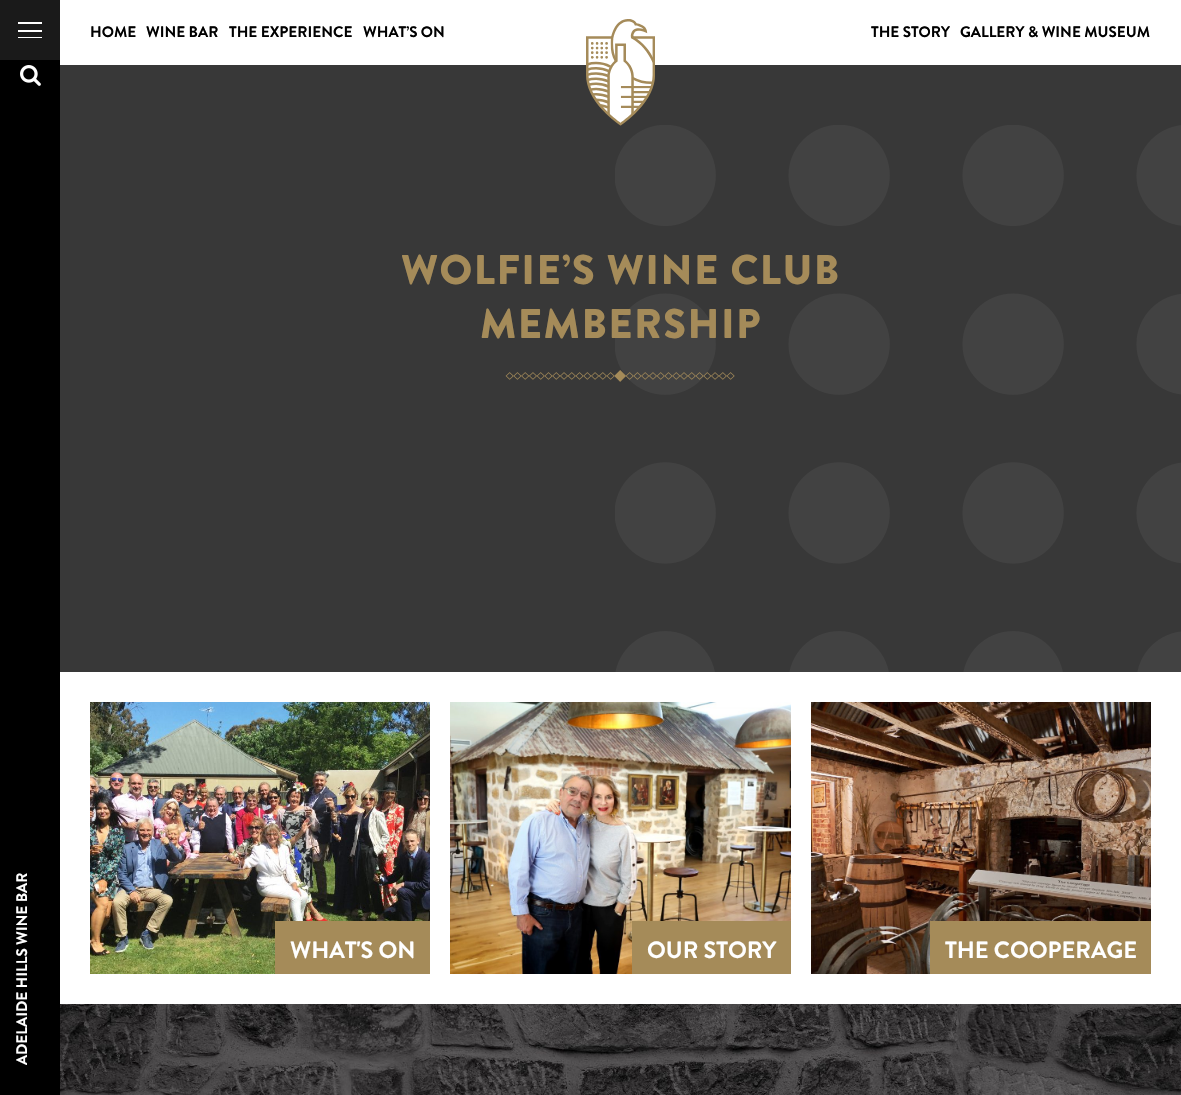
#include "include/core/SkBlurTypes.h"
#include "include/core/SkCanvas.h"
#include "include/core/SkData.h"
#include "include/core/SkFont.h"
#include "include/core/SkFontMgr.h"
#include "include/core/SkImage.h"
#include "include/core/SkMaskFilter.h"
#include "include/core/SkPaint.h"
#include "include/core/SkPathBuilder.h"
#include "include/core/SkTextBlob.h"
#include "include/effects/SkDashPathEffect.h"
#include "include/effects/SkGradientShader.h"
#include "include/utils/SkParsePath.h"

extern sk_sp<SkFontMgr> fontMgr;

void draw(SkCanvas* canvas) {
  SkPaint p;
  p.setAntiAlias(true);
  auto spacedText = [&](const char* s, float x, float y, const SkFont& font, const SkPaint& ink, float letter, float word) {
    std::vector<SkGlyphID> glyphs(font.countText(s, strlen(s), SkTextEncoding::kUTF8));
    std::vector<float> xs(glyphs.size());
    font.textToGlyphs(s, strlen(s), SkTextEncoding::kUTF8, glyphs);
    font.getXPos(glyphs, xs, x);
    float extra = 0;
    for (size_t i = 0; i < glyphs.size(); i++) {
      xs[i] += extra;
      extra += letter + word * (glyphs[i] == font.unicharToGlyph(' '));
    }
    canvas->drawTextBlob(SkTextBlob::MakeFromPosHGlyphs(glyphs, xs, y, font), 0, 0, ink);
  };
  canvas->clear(SkColorSetRGB(56, 56, 56));
  p.setColor(SK_ColorWHITE);
  canvas->drawRect(SkRect::MakeLTRB(60, 0, 1181, 65), p);
  canvas->drawImageRect(SkImages::DeferredFromEncodedData(SkData::MakeFromFileName("images/2.png")), SkRect::MakeLTRB(615, 125, 1181, 672), SkSamplingOptions());
  canvas->drawImageRect(SkImages::DeferredFromEncodedData(SkData::MakeFromFileName("images/1.png")), SkRect::MakeLTRB(586, 19, 655, 126), SkSamplingOptions());
  canvas->drawImageRect(SkImages::DeferredFromEncodedData(SkData::MakeFromFileName("images/3.png")), SkRect::MakeLTRB(505, 370, 735, 382), SkSamplingOptions());
  p.setColor(SK_ColorBLACK);
  canvas->drawRect(SkRect::MakeLTRB(0, 60, 60, 1095), p);
  p.setColor(SkColorSetRGB(26, 26, 26));
  canvas->drawRect(SkRect::MakeLTRB(0, 0, 60, 60), p);
  p.setColor(SkColorSetRGB(254, 254, 254));
  canvas->drawRect(SkRect::MakeLTRB(18, 22, 42, 24), p);
  canvas->drawRect(SkRect::MakeLTRB(18, 30, 42, 32), p);
  canvas->drawRect(SkRect::MakeLTRB(18, 37, 42, 38), p);
  canvas->drawImageRect(SkImages::DeferredFromEncodedData(SkData::MakeFromFileName("images/4.png")), SkRect::MakeLTRB(20, 65, 41, 86), SkSamplingOptions());
  p.setColor(SK_ColorWHITE);
  canvas->drawRect(SkRect::MakeLTRB(60, 672, 1181, 1004), p);
  canvas->drawImageRect(SkImages::DeferredFromEncodedData(SkData::MakeFromFileName("images/5.png")), SkRect::MakeLTRB(90, 702, 430, 974), SkSamplingOptions());
  p.setColor(SkColorSetRGB(165, 139, 89));
  canvas->drawRect(SkRect::MakeLTRB(275, 921, 430, 974), p);
  canvas->drawImageRect(SkImages::DeferredFromEncodedData(SkData::MakeFromFileName("images/6.png")), SkRect::MakeLTRB(450, 702, 791, 974), SkSamplingOptions());
  canvas->drawRect(SkRect::MakeLTRB(632, 921, 791, 974), p);
  canvas->drawImageRect(SkImages::DeferredFromEncodedData(SkData::MakeFromFileName("images/7.png")), SkRect::MakeLTRB(811, 702, 1151, 974), SkSamplingOptions());
  canvas->drawRect(SkRect::MakeLTRB(930, 921, 1151, 974), p);
  canvas->drawImageRect(SkImages::DeferredFromEncodedData(SkData::MakeFromFileName("images/8.png")), SkRect::MakeLTRB(60, 1004, 1181, 1095), SkSamplingOptions());
  SkFont font1(fontMgr->matchFamilyStyle("Brandon Grotesque", SkFontStyle::Bold()), 15.25f);
  font1.setSubpixel(true);
  p.setColor(SK_ColorBLACK);
  canvas->drawString("HOME", 90, 37, font1, p);
  canvas->drawString("WINE BAR", 146, 37, font1, p);
  canvas->drawString("THE EXPERIENCE", 229, 37, font1, p);
  canvas->drawString("WHAT’S ON", 363, 37, font1, p);
  canvas->drawString("THE STORY", 871, 37, font1, p);
  canvas->drawString("GALLERY & WINE MUSEUM", 960, 37, font1, p);
  SkFont font2(fontMgr->matchFamilyStyle("Brandon Grotesque", SkFontStyle(900, SkFontStyle::kNormal_Width, SkFontStyle::kUpright_Slant)), 41.4f);
  font2.setSubpixel(true);
  p.setColor(SkColorSetRGB(165, 139, 89));
  spacedText("WOLFIE’S WINE CLUB", 401, 284, font2, p, 1.5f, 0);
  spacedText("MEMBERSHIP", 480, 338, font2, p, 1.5f, 0);
  p.setColor(SK_ColorWHITE);
  canvas->save();
  canvas->rotate(-90, 27, 1065);
  canvas->drawString("ADELAIDE HILLS WINE BAR", 27, 1065, font1, p);
  canvas->restore();
  SkFont font3(fontMgr->matchFamilyStyle("Brandon Grotesque", SkFontStyle::Bold()), 23.5f);
  font3.setSubpixel(true);
  canvas->drawString("WHAT'S ON", 290, 958, font3, p);
  canvas->drawString("OUR STORY", 647, 958, font3, p);
  canvas->drawString("THE COOPERAGE", 945, 958, font3, p);
}
